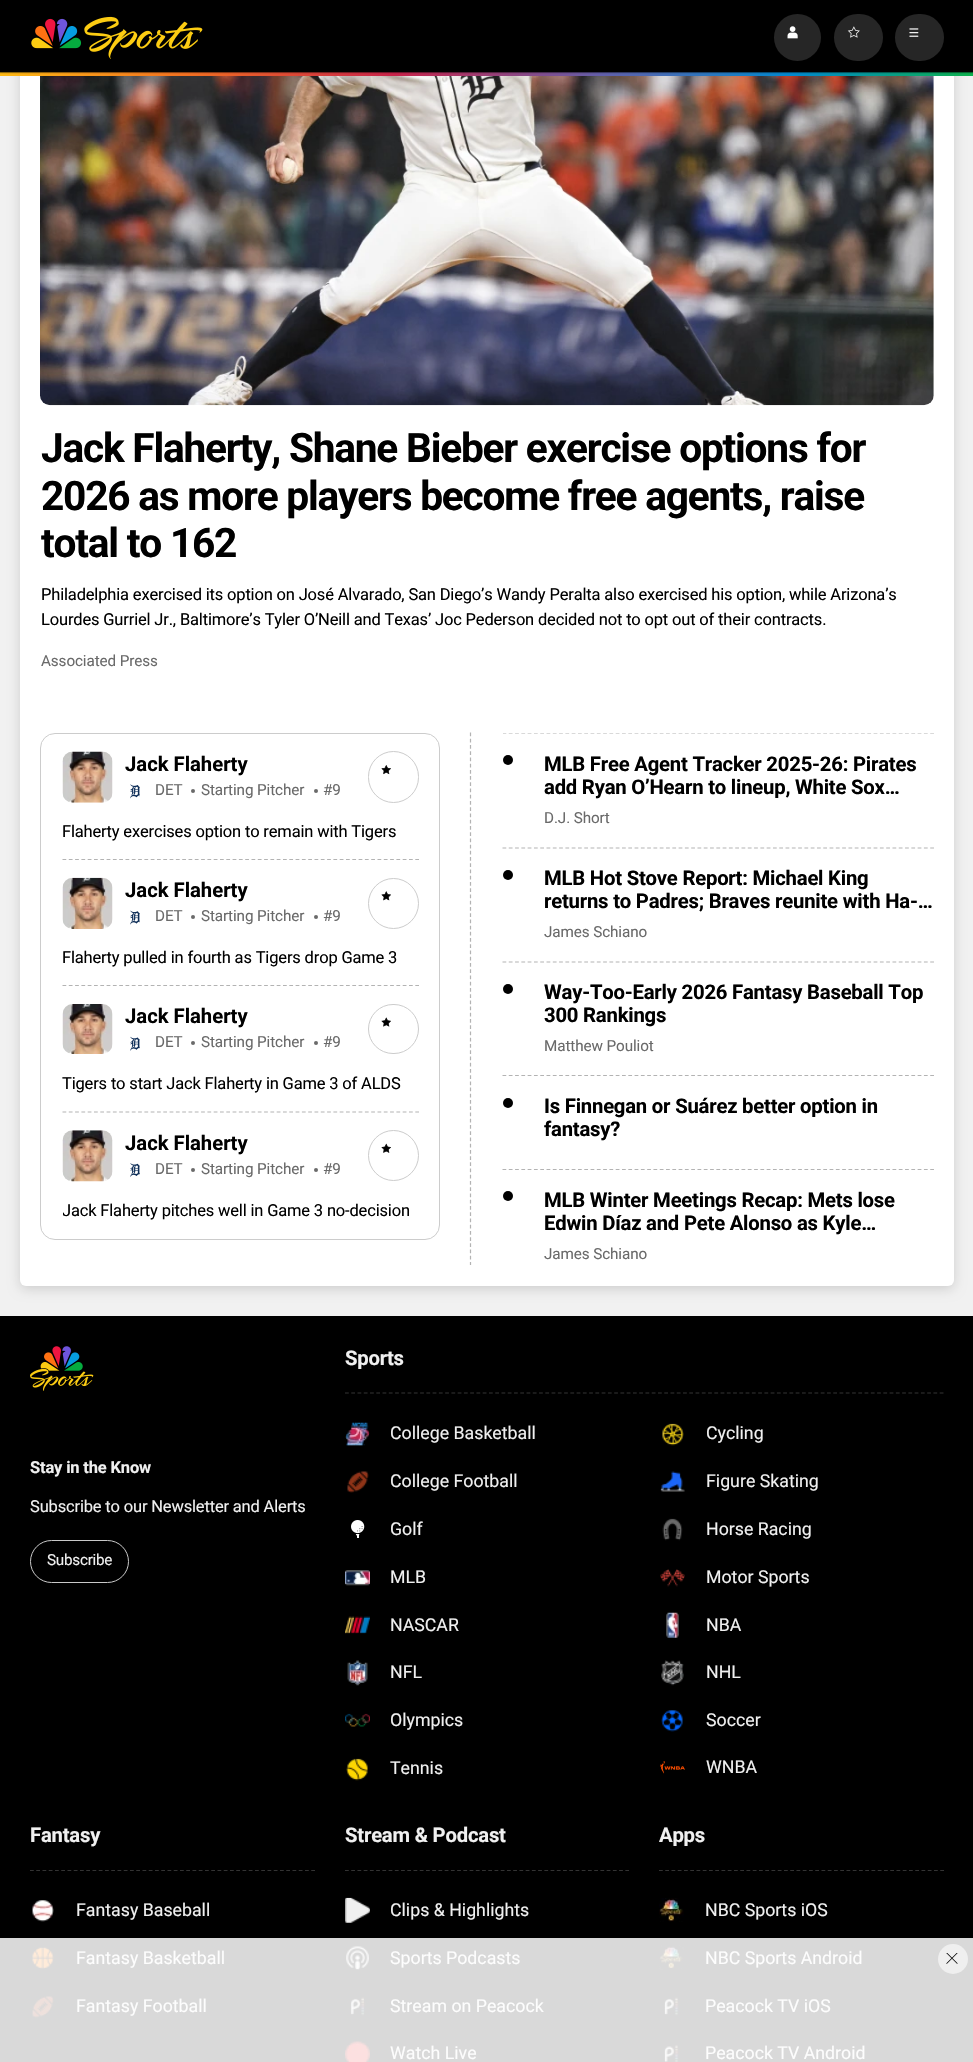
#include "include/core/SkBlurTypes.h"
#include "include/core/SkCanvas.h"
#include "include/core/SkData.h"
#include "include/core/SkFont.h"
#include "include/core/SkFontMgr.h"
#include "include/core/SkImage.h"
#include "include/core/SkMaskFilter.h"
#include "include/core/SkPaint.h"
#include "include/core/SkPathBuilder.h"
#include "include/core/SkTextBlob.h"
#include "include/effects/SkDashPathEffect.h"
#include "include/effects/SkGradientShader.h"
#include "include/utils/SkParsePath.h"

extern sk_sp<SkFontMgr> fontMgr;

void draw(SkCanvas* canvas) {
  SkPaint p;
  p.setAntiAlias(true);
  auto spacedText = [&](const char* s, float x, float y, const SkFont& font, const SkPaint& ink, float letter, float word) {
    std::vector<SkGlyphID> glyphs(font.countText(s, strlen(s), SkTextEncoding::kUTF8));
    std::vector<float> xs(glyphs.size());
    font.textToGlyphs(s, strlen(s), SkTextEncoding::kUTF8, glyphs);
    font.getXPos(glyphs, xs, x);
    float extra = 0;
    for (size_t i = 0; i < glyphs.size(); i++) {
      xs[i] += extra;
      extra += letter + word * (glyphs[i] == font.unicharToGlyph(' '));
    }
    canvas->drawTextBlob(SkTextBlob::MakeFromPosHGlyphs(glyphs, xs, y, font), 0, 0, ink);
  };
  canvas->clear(SkColorSetRGB(241, 241, 241));
  p.setColor(SkColorSetARGB(38, 0, 0, 0));
  p.setMaskFilter(SkMaskFilter::MakeBlur(kNormal_SkBlurStyle, 6));
  canvas->drawRoundRect(SkRect::MakeLTRB(20, -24, 954, 1289), 6, 6, p);
  p.setMaskFilter(nullptr);
  p.setColor(SK_ColorWHITE);
  canvas->drawRoundRect(SkRect::MakeLTRB(20, -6, 954, 1286), 6, 6, p);
  p.setColor(SK_ColorBLACK);
  canvas->drawRect(SkRect::MakeLTRB(0, 0, 973, 74), p);
  canvas->drawImageRect(SkImages::DeferredFromEncodedData(SkData::MakeFromFileName("images/1.png")), SkRect::MakeLTRB(31, 16, 203, 59), SkSamplingOptions());
  p.setColor(SkColorSetRGB(38, 38, 38));
  canvas->drawCircle(797.5f, 37.5f, 23.5f, p);
  canvas->drawImageRect(SkImages::DeferredFromEncodedData(SkData::MakeFromFileName("images/2.png")), SkRect::MakeLTRB(787, 26, 798, 39), SkSamplingOptions());
  canvas->drawRoundRect(SkRect::MakeLTRB(834, 14, 883, 61), 23.5f, 23.5f, p);
  canvas->drawImageRect(SkImages::DeferredFromEncodedData(SkData::MakeFromFileName("images/3.png")), SkRect::MakeLTRB(847, 26, 860, 38), SkSamplingOptions());
  canvas->drawRoundRect(SkRect::MakeLTRB(895, 14, 944, 61), 23.5f, 23.5f, p);
  canvas->drawImageRect(SkImages::DeferredFromEncodedData(SkData::MakeFromFileName("images/4.png")), SkRect::MakeLTRB(909, 28, 919, 37), SkSamplingOptions());
  canvas->drawImageRect(SkImages::DeferredFromEncodedData(SkData::MakeFromFileName("images/5.png")), SkRect::MakeLTRB(0, 72, 973, 76), SkSamplingOptions());
  canvas->drawImageRect(SkImages::DeferredFromEncodedData(SkData::MakeFromFileName("images/6.png")), SkRect::MakeLTRB(40, 76, 934, 406), SkSamplingOptions());
  p.setStyle(SkPaint::kStroke_Style);
  p.setStrokeWidth(1.2f);
  p.setColor(SkColorSetRGB(179, 179, 179));
  p.setPathEffect(SkDashPathEffect::Make({{3.75f, 2.48f}}, 0));
  canvas->drawPath(SkPathBuilder().moveTo(470.5f, 732.5f).lineTo(470.5f, 1265).detach(), p);
  p.setPathEffect(nullptr);
  p.setStrokeWidth(1);
  p.setColor(SkColorSetRGB(204, 204, 204));
  canvas->drawRoundRect(SkRect::MakeLTRB(40.5f, 733.5f, 439.5f, 1239.5f), 14.5f, 14.5f, p);
  canvas->drawImageRect(SkImages::DeferredFromEncodedData(SkData::MakeFromFileName("images/7.png")), SkRect::MakeLTRB(62, 751, 113, 803), SkSamplingOptions());
  canvas->drawImageRect(SkImages::DeferredFromEncodedData(SkData::MakeFromFileName("images/8.png")), SkRect::MakeLTRB(130, 784, 140, 799), SkSamplingOptions());
  p.setStyle(SkPaint::kFill_Style);
  p.setColor(SkColorSetRGB(106, 106, 106));
  canvas->drawCircle(193, 791, 2, p);
  canvas->drawCircle(316, 791, 2, p);
  p.setStyle(SkPaint::kStroke_Style);
  p.setColor(SkColorSetRGB(204, 204, 204));
  canvas->drawRoundRect(SkRect::MakeLTRB(368.5f, 751.5f, 418.5f, 802.5f), 25, 25, p);
  canvas->drawImageRect(SkImages::DeferredFromEncodedData(SkData::MakeFromFileName("images/9.png")), SkRect::MakeLTRB(381, 765, 391, 775), SkSamplingOptions());
  p.setStrokeWidth(1.2f);
  p.setColor(SkColorSetRGB(179, 179, 179));
  p.setPathEffect(SkDashPathEffect::Make({{3.75f, 2.55f}}, 0));
  canvas->drawPath(SkPathBuilder().moveTo(62.5f, 859.5f).lineTo(419, 859.5f).detach(), p);
  p.setPathEffect(nullptr);
  canvas->drawImageRect(SkImages::DeferredFromEncodedData(SkData::MakeFromFileName("images/10.png")), SkRect::MakeLTRB(62, 877, 113, 929), SkSamplingOptions());
  canvas->drawImageRect(SkImages::DeferredFromEncodedData(SkData::MakeFromFileName("images/11.png")), SkRect::MakeLTRB(130, 910, 140, 925), SkSamplingOptions());
  p.setStyle(SkPaint::kFill_Style);
  p.setColor(SkColorSetRGB(106, 106, 106));
  canvas->drawCircle(193, 917, 2, p);
  canvas->drawCircle(316, 917, 2, p);
  p.setStyle(SkPaint::kStroke_Style);
  p.setStrokeWidth(1);
  p.setColor(SkColorSetRGB(204, 204, 204));
  canvas->drawCircle(393.5f, 903.5f, 25, p);
  canvas->drawImageRect(SkImages::DeferredFromEncodedData(SkData::MakeFromFileName("images/12.png")), SkRect::MakeLTRB(381, 891, 391, 901), SkSamplingOptions());
  p.setStrokeWidth(1.2f);
  p.setColor(SkColorSetRGB(179, 179, 179));
  p.setPathEffect(SkDashPathEffect::Make({{3.75f, 2.55f}}, 0));
  canvas->drawPath(SkPathBuilder().moveTo(62.5f, 985.5f).lineTo(419, 985.5f).detach(), p);
  p.setPathEffect(nullptr);
  canvas->drawImageRect(SkImages::DeferredFromEncodedData(SkData::MakeFromFileName("images/13.png")), SkRect::MakeLTRB(62, 1004, 113, 1054), SkSamplingOptions());
  canvas->drawImageRect(SkImages::DeferredFromEncodedData(SkData::MakeFromFileName("images/14.png")), SkRect::MakeLTRB(130, 1036, 140, 1051), SkSamplingOptions());
  p.setStyle(SkPaint::kFill_Style);
  p.setColor(SkColorSetRGB(106, 106, 106));
  canvas->drawCircle(193, 1043, 2, p);
  canvas->drawCircle(316, 1043, 2, p);
  p.setStyle(SkPaint::kStroke_Style);
  p.setStrokeWidth(1);
  p.setColor(SkColorSetRGB(204, 204, 204));
  canvas->drawRoundRect(SkRect::MakeLTRB(368.5f, 1004.5f, 418.5f, 1053.5f), 24.5f, 24.5f, p);
  canvas->drawImageRect(SkImages::DeferredFromEncodedData(SkData::MakeFromFileName("images/15.png")), SkRect::MakeLTRB(381, 1017, 391, 1027), SkSamplingOptions());
  p.setStrokeWidth(1.2f);
  p.setColor(SkColorSetRGB(179, 179, 179));
  p.setPathEffect(SkDashPathEffect::Make({{3.75f, 2.55f}}, 0));
  canvas->drawPath(SkPathBuilder().moveTo(62.5f, 1112).lineTo(419, 1112).detach(), p);
  p.setPathEffect(nullptr);
  canvas->drawImageRect(SkImages::DeferredFromEncodedData(SkData::MakeFromFileName("images/16.png")), SkRect::MakeLTRB(62, 1130, 113, 1182), SkSamplingOptions());
  canvas->drawImageRect(SkImages::DeferredFromEncodedData(SkData::MakeFromFileName("images/17.png")), SkRect::MakeLTRB(130, 1163, 140, 1177), SkSamplingOptions());
  p.setStyle(SkPaint::kFill_Style);
  p.setColor(SkColorSetRGB(106, 106, 106));
  canvas->drawCircle(193, 1170, 2, p);
  canvas->drawCircle(316, 1170, 2, p);
  p.setStyle(SkPaint::kStroke_Style);
  p.setStrokeWidth(1);
  p.setColor(SkColorSetRGB(204, 204, 204));
  canvas->drawCircle(393.5f, 1155.5f, 25, p);
  canvas->drawImageRect(SkImages::DeferredFromEncodedData(SkData::MakeFromFileName("images/18.png")), SkRect::MakeLTRB(381, 1143, 391, 1153), SkSamplingOptions());
  canvas->save();
  canvas->clipRect(SkRect::MakeLTRB(503, 733, 934, 1265));
  p.setStrokeWidth(1.2f);
  p.setColor(SkColorSetRGB(179, 179, 179));
  p.setPathEffect(SkDashPathEffect::Make({{3.75f, 2.54f}}, 0));
  canvas->drawPath(SkPathBuilder().moveTo(502.5f, 733).lineTo(934, 733).detach(), p);
  p.setPathEffect(nullptr);
  canvas->restore();
  p.setStyle(SkPaint::kFill_Style);
  p.setColor(SK_ColorBLACK);
  canvas->drawCircle(508, 760, 5, p);
  p.setStyle(SkPaint::kStroke_Style);
  p.setColor(SkColorSetRGB(179, 179, 179));
  p.setPathEffect(SkDashPathEffect::Make({{3.75f, 2.54f}}, 0));
  canvas->drawPath(SkPathBuilder().moveTo(502.5f, 848).lineTo(934, 848).detach(), p);
  p.setPathEffect(nullptr);
  p.setStyle(SkPaint::kFill_Style);
  p.setColor(SK_ColorBLACK);
  canvas->drawCircle(508, 875, 5, p);
  p.setStyle(SkPaint::kStroke_Style);
  p.setColor(SkColorSetRGB(179, 179, 179));
  p.setPathEffect(SkDashPathEffect::Make({{3.75f, 2.54f}}, 0));
  canvas->drawPath(SkPathBuilder().moveTo(502.5f, 962).lineTo(934, 962).detach(), p);
  p.setPathEffect(nullptr);
  p.setStyle(SkPaint::kFill_Style);
  p.setColor(SK_ColorBLACK);
  canvas->drawCircle(508, 989, 5, p);
  p.setStyle(SkPaint::kStroke_Style);
  p.setColor(SkColorSetRGB(179, 179, 179));
  p.setPathEffect(SkDashPathEffect::Make({{3.75f, 2.54f}}, 0));
  canvas->drawPath(SkPathBuilder().moveTo(502.5f, 1075.5f).lineTo(934, 1075.5f).detach(), p);
  p.setPathEffect(nullptr);
  p.setStyle(SkPaint::kFill_Style);
  p.setColor(SK_ColorBLACK);
  canvas->drawCircle(508, 1103, 5, p);
  p.setStyle(SkPaint::kStroke_Style);
  p.setColor(SkColorSetRGB(179, 179, 179));
  p.setPathEffect(SkDashPathEffect::Make({{3.75f, 2.54f}}, 0));
  canvas->drawPath(SkPathBuilder().moveTo(502.5f, 1169.5f).lineTo(934, 1169.5f).detach(), p);
  p.setPathEffect(nullptr);
  p.setStyle(SkPaint::kFill_Style);
  p.setColor(SK_ColorBLACK);
  canvas->drawCircle(508, 1196, 5, p);
  canvas->drawRect(SkRect::MakeLTRB(0, 1316, 973, 1938), p);
  p.setColor(SkColorSetRGB(217, 217, 217));
  canvas->drawRect(SkRect::MakeLTRB(0, 1938, 973, 2062), p);
  canvas->drawImageRect(SkImages::DeferredFromEncodedData(SkData::MakeFromFileName("images/19.png")), SkRect::MakeLTRB(30, 1346, 94, 1391), SkSamplingOptions());
  p.setStyle(SkPaint::kStroke_Style);
  p.setStrokeWidth(1);
  p.setColor(SkColorSetRGB(201, 201, 201));
  canvas->drawRoundRect(SkRect::MakeLTRB(30.5f, 1540.5f, 128.5f, 1582.5f), 21, 21, p);
  p.setStrokeWidth(1.2f);
  p.setColor(SkColorSetRGB(51, 51, 51));
  p.setPathEffect(SkDashPathEffect::Make({{3.75f, 2.51f}}, 0));
  canvas->drawPath(SkPathBuilder().moveTo(345, 1393).lineTo(944, 1393).detach(), p);
  p.setPathEffect(nullptr);
  canvas->drawImageRect(SkImages::DeferredFromEncodedData(SkData::MakeFromFileName("images/20.png")), SkRect::MakeLTRB(345, 1422, 370, 1446), SkSamplingOptions());
  canvas->drawImageRect(SkImages::DeferredFromEncodedData(SkData::MakeFromFileName("images/21.png")), SkRect::MakeLTRB(662, 1423, 684, 1446), SkSamplingOptions());
  canvas->drawImageRect(SkImages::DeferredFromEncodedData(SkData::MakeFromFileName("images/22.png")), SkRect::MakeLTRB(347, 1471, 369, 1493), SkSamplingOptions());
  canvas->drawImageRect(SkImages::DeferredFromEncodedData(SkData::MakeFromFileName("images/23.png")), SkRect::MakeLTRB(660, 1471, 685, 1492), SkSamplingOptions());
  canvas->drawImageRect(SkImages::DeferredFromEncodedData(SkData::MakeFromFileName("images/24.png")), SkRect::MakeLTRB(351, 1520, 365, 1538), SkSamplingOptions());
  canvas->drawImageRect(SkImages::DeferredFromEncodedData(SkData::MakeFromFileName("images/25.png")), SkRect::MakeLTRB(662, 1518, 683, 1541), SkSamplingOptions());
  canvas->drawImageRect(SkImages::DeferredFromEncodedData(SkData::MakeFromFileName("images/26.png")), SkRect::MakeLTRB(345, 1570, 370, 1586), SkSamplingOptions());
  canvas->drawImageRect(SkImages::DeferredFromEncodedData(SkData::MakeFromFileName("images/27.png")), SkRect::MakeLTRB(660, 1569, 685, 1587), SkSamplingOptions());
  canvas->drawImageRect(SkImages::DeferredFromEncodedData(SkData::MakeFromFileName("images/28.png")), SkRect::MakeLTRB(345, 1616, 370, 1634), SkSamplingOptions());
  canvas->drawImageRect(SkImages::DeferredFromEncodedData(SkData::MakeFromFileName("images/29.png")), SkRect::MakeLTRB(666, 1612, 679, 1638), SkSamplingOptions());
  canvas->drawImageRect(SkImages::DeferredFromEncodedData(SkData::MakeFromFileName("images/30.png")), SkRect::MakeLTRB(347, 1660, 368, 1686), SkSamplingOptions());
  canvas->drawImageRect(SkImages::DeferredFromEncodedData(SkData::MakeFromFileName("images/31.png")), SkRect::MakeLTRB(661, 1660, 684, 1686), SkSamplingOptions());
  canvas->drawImageRect(SkImages::DeferredFromEncodedData(SkData::MakeFromFileName("images/32.png")), SkRect::MakeLTRB(345, 1713, 370, 1727), SkSamplingOptions());
  canvas->drawImageRect(SkImages::DeferredFromEncodedData(SkData::MakeFromFileName("images/33.png")), SkRect::MakeLTRB(661, 1710, 683, 1732), SkSamplingOptions());
  canvas->drawImageRect(SkImages::DeferredFromEncodedData(SkData::MakeFromFileName("images/34.png")), SkRect::MakeLTRB(346, 1758, 368, 1781), SkSamplingOptions());
  canvas->drawImageRect(SkImages::DeferredFromEncodedData(SkData::MakeFromFileName("images/35.png")), SkRect::MakeLTRB(660, 1761, 685, 1774), SkSamplingOptions());
  p.setPathEffect(SkDashPathEffect::Make({{3.75f, 2.5f}}, 0));
  canvas->drawPath(SkPathBuilder().moveTo(30, 1870.5f).lineTo(315, 1870.5f).detach(), p);
  p.setPathEffect(nullptr);
  canvas->drawImageRect(SkImages::DeferredFromEncodedData(SkData::MakeFromFileName("images/36.png")), SkRect::MakeLTRB(32, 1900, 54, 1922), SkSamplingOptions());
  canvas->drawImageRect(SkImages::DeferredFromEncodedData(SkData::MakeFromFileName("images/37.png")), SkRect::MakeLTRB(32, 1947, 54, 1969), SkSamplingOptions());
  canvas->drawImageRect(SkImages::DeferredFromEncodedData(SkData::MakeFromFileName("images/38.png")), SkRect::MakeLTRB(32, 1996, 54, 2018), SkSamplingOptions());
  p.setPathEffect(SkDashPathEffect::Make({{3.75f, 2.48f}}, 0));
  canvas->drawPath(SkPathBuilder().moveTo(345, 1870.5f).lineTo(629, 1870.5f).detach(), p);
  p.setPathEffect(nullptr);
  canvas->drawImageRect(SkImages::DeferredFromEncodedData(SkData::MakeFromFileName("images/39.png")), SkRect::MakeLTRB(345, 1897, 370, 1923), SkSamplingOptions());
  canvas->drawImageRect(SkImages::DeferredFromEncodedData(SkData::MakeFromFileName("images/40.png")), SkRect::MakeLTRB(346, 1946, 369, 1970), SkSamplingOptions());
  canvas->drawImageRect(SkImages::DeferredFromEncodedData(SkData::MakeFromFileName("images/41.png")), SkRect::MakeLTRB(350, 1994, 366, 2016), SkSamplingOptions());
  canvas->drawImageRect(SkImages::DeferredFromEncodedData(SkData::MakeFromFileName("images/42.png")), SkRect::MakeLTRB(345, 2041, 370, 2062), SkSamplingOptions());
  p.setPathEffect(SkDashPathEffect::Make({{3.75f, 2.5f}}, 0));
  canvas->drawPath(SkPathBuilder().moveTo(659, 1870.5f).lineTo(944, 1870.5f).detach(), p);
  p.setPathEffect(nullptr);
  canvas->drawImageRect(SkImages::DeferredFromEncodedData(SkData::MakeFromFileName("images/43.png")), SkRect::MakeLTRB(659, 1898, 684, 1922), SkSamplingOptions());
  canvas->drawImageRect(SkImages::DeferredFromEncodedData(SkData::MakeFromFileName("images/44.png")), SkRect::MakeLTRB(659, 1945, 684, 1970), SkSamplingOptions());
  canvas->drawImageRect(SkImages::DeferredFromEncodedData(SkData::MakeFromFileName("images/45.png")), SkRect::MakeLTRB(664, 1994, 680, 2016), SkSamplingOptions());
  canvas->drawImageRect(SkImages::DeferredFromEncodedData(SkData::MakeFromFileName("images/46.png")), SkRect::MakeLTRB(664, 2044, 680, 2062), SkSamplingOptions());
  p.setStyle(SkPaint::kFill_Style);
  p.setColor(SkColorSetRGB(239, 239, 239));
  canvas->drawCircle(953, 1959, 15, p);
  canvas->drawImageRect(SkImages::DeferredFromEncodedData(SkData::MakeFromFileName("images/47.png")), SkRect::MakeLTRB(946, 1953, 958, 1964), SkSamplingOptions());
  SkFont font1(fontMgr->matchFamilyStyle("Roboto", SkFontStyle::Bold()), 40.6f);
  font1.setSubpixel(true);
  p.setColor(SK_ColorBLACK);
  spacedText("Jack Flaherty, Shane Bieber exercise options for", 41, 462, font1, p, -1.2f, 0);
  spacedText("2026 as more players become free agents, raise", 41, 510, font1, p, -1.2f, 0);
  spacedText("total to 162", 41, 557, font1, p, -1.2f, 0);
  SkFont font2(fontMgr->matchFamilyStyle("Roboto", SkFontStyle::Normal()), 16.48f);
  font2.setSubpixel(true);
  spacedText("Philadelphia exercised its option on José Alvarado, San Diego’s Wandy Peralta also exercised his option, while Arizona’s", 41, 600, font2, p, -0.16f, 0);
  spacedText("Lourdes Gurriel Jr., Baltimore’s Tyler O’Neill and Texas’ Joc Pederson decided not to opt out of their contracts.", 41, 625, font2, p, -0.16f, 0);
  SkFont font3(fontMgr->matchFamilyStyle("Roboto", SkFontStyle::Normal()), 15.25f);
  font3.setSubpixel(true);
  p.setColor(SkColorSetRGB(106, 106, 106));
  spacedText("Associated Press", 41, 666, font3, p, -0.1f, 0);
  SkFont font4(fontMgr->matchFamilyStyle("Roboto", SkFontStyle::Bold()), 20.25f);
  font4.setSubpixel(true);
  p.setColor(SK_ColorBLACK);
  canvas->drawString("Jack Flaherty", 125, 771, font4, p);
  p.setColor(SkColorSetRGB(106, 106, 106));
  spacedText("DET", 155, 795, font3, p, -0.1f, 0);
  spacedText("Starting Pitcher", 201, 795, font3, p, -0.1f, 0);
  spacedText("#9", 323, 795, font3, p, -0.1f, 0);
  p.setColor(SK_ColorBLACK);
  spacedText("Flaherty exercises option to remain with Tigers", 62, 837, font2, p, -0.16f, 0);
  canvas->drawString("Jack Flaherty", 125, 897, font4, p);
  p.setColor(SkColorSetRGB(106, 106, 106));
  spacedText("DET", 155, 921, font3, p, -0.1f, 0);
  spacedText("Starting Pitcher", 201, 921, font3, p, -0.1f, 0);
  spacedText("#9", 323, 921, font3, p, -0.1f, 0);
  p.setColor(SK_ColorBLACK);
  spacedText("Flaherty pulled in fourth as Tigers drop Game 3", 62, 963, font2, p, -0.16f, 0);
  canvas->drawString("Jack Flaherty", 125, 1023, font4, p);
  p.setColor(SkColorSetRGB(106, 106, 106));
  spacedText("DET", 155, 1047, font3, p, -0.1f, 0);
  spacedText("Starting Pitcher", 201, 1047, font3, p, -0.1f, 0);
  spacedText("#9", 323, 1047, font3, p, -0.1f, 0);
  p.setColor(SK_ColorBLACK);
  spacedText("Tigers to start Jack Flaherty in Game 3 of ALDS", 62, 1089, font2, p, -0.16f, 0);
  canvas->drawString("Jack Flaherty", 125, 1150, font4, p);
  p.setColor(SkColorSetRGB(106, 106, 106));
  spacedText("DET", 155, 1174, font3, p, -0.1f, 0);
  spacedText("Starting Pitcher", 201, 1174, font3, p, -0.1f, 0);
  spacedText("#9", 323, 1174, font3, p, -0.1f, 0);
  canvas->save();
  canvas->clipRect(SkRect::MakeLTRB(63, 1199, 419, 1221));
  p.setColor(SK_ColorBLACK);
  spacedText("Jack Flaherty pitches well in Game 3 no-decision", 62, 1216, font2, p, -0.16f, 0);
  canvas->restore();
  spacedText("MLB Free Agent Tracker 2025-26: Pirates", 544, 771, font4, p, -0.2f, 0);
  spacedText("add Ryan O’Hearn to lineup, White Sox…", 544, 794, font4, p, -0.2f, 0);
  p.setColor(SkColorSetRGB(106, 106, 106));
  spacedText("D.J. Short", 544, 823, font3, p, -0.1f, 0);
  p.setColor(SK_ColorBLACK);
  spacedText("MLB Hot Stove Report: Michael King", 544, 885, font4, p, -0.2f, 0);
  spacedText("returns to Padres; Braves reunite with Ha-…", 544, 908, font4, p, -0.2f, 0);
  p.setColor(SkColorSetRGB(106, 106, 106));
  spacedText("James Schiano", 544, 937, font3, p, -0.1f, 0);
  p.setColor(SK_ColorBLACK);
  spacedText("Way-Too-Early 2026 Fantasy Baseball Top", 544, 999, font4, p, -0.2f, 0);
  spacedText("300 Rankings", 544, 1022, font4, p, -0.2f, 0);
  p.setColor(SkColorSetRGB(106, 106, 106));
  spacedText("Matthew Pouliot", 544, 1051, font3, p, -0.1f, 0);
  p.setColor(SK_ColorBLACK);
  spacedText("Is Finnegan or Suárez better option in", 544, 1113, font4, p, -0.2f, 0);
  spacedText("fantasy?", 544, 1136, font4, p, -0.2f, 0);
  spacedText("MLB Winter Meetings Recap: Mets lose", 544, 1207, font4, p, -0.2f, 0);
  spacedText("Edwin Díaz and Pete Alonso as Kyle…", 544, 1230, font4, p, -0.2f, 0);
  p.setColor(SkColorSetRGB(106, 106, 106));
  spacedText("James Schiano", 544, 1259, font3, p, -0.1f, 0);
  SkFont font5(fontMgr->matchFamilyStyle("Roboto", SkFontStyle::Bold()), 16.48f);
  font5.setSubpixel(true);
  p.setColor(SkColorSetRGB(240, 240, 240));
  spacedText("Stay in the Know", 30, 1473, font5, p, -0.16f, 0);
  spacedText("Subscribe to our Newsletter and Alerts", 30, 1512, font2, p, -0.16f, 0);
  spacedText("Subscribe", 47, 1565, font3, p, -0.25f, 0);
  spacedText("Sports", 345, 1365, font4, p, -0.2f, 0);
  SkFont font6(fontMgr->matchFamilyStyle("Roboto", SkFontStyle::Normal()), 17.75f);
  font6.setSubpixel(true);
  canvas->drawString("College Basketball", 390, 1439, font6, p);
  canvas->drawString("Cycling", 706, 1439, font6, p);
  canvas->drawString("College Football", 390, 1487, font6, p);
  canvas->drawString("Figure Skating", 706, 1487, font6, p);
  canvas->drawString("Golf", 390, 1535, font6, p);
  canvas->drawString("Horse Racing", 706, 1535, font6, p);
  canvas->drawString("MLB", 390, 1583, font6, p);
  canvas->drawString("Motor Sports", 706, 1583, font6, p);
  canvas->drawString("NASCAR", 390, 1631, font6, p);
  canvas->drawString("NBA", 706, 1631, font6, p);
  canvas->drawString("NFL", 390, 1678, font6, p);
  canvas->drawString("NHL", 706, 1678, font6, p);
  canvas->drawString("Olympics", 390, 1726, font6, p);
  canvas->drawString("Soccer", 706, 1726, font6, p);
  canvas->drawString("Tennis", 390, 1774, font6, p);
  canvas->drawString("WNBA", 706, 1773, font6, p);
  spacedText("Fantasy", 30, 1842, font4, p, -0.2f, 0);
  canvas->drawString("Fantasy Baseball", 76, 1916, font6, p);
  p.setColor(SkColorSetRGB(253, 253, 253));
  canvas->drawString("Fantasy Basketball", 76, 1964, font6, p);
  canvas->drawString("Fantasy Football", 76, 2012, font6, p);
  p.setColor(SkColorSetRGB(240, 240, 240));
  spacedText("Stream & Podcast", 345, 1842, font4, p, -0.2f, 0);
  canvas->drawString("Clips & Highlights", 390, 1916, font6, p);
  p.setColor(SkColorSetRGB(253, 253, 253));
  canvas->drawString("Sports Podcasts", 390, 1964, font6, p);
  canvas->drawString("Stream on Peacock", 390, 2012, font6, p);
  canvas->drawString("Watch Live", 390, 2059, font6, p);
  p.setColor(SkColorSetRGB(240, 240, 240));
  spacedText("Apps", 659, 1842, font4, p, -0.2f, 0);
  canvas->drawString("NBC Sports iOS", 705, 1916, font6, p);
  p.setColor(SkColorSetRGB(253, 253, 253));
  canvas->drawString("NBC Sports Android", 705, 1964, font6, p);
  canvas->drawString("Peacock TV iOS", 705, 2012, font6, p);
  canvas->drawString("Peacock TV Android", 705, 2059, font6, p);
}
